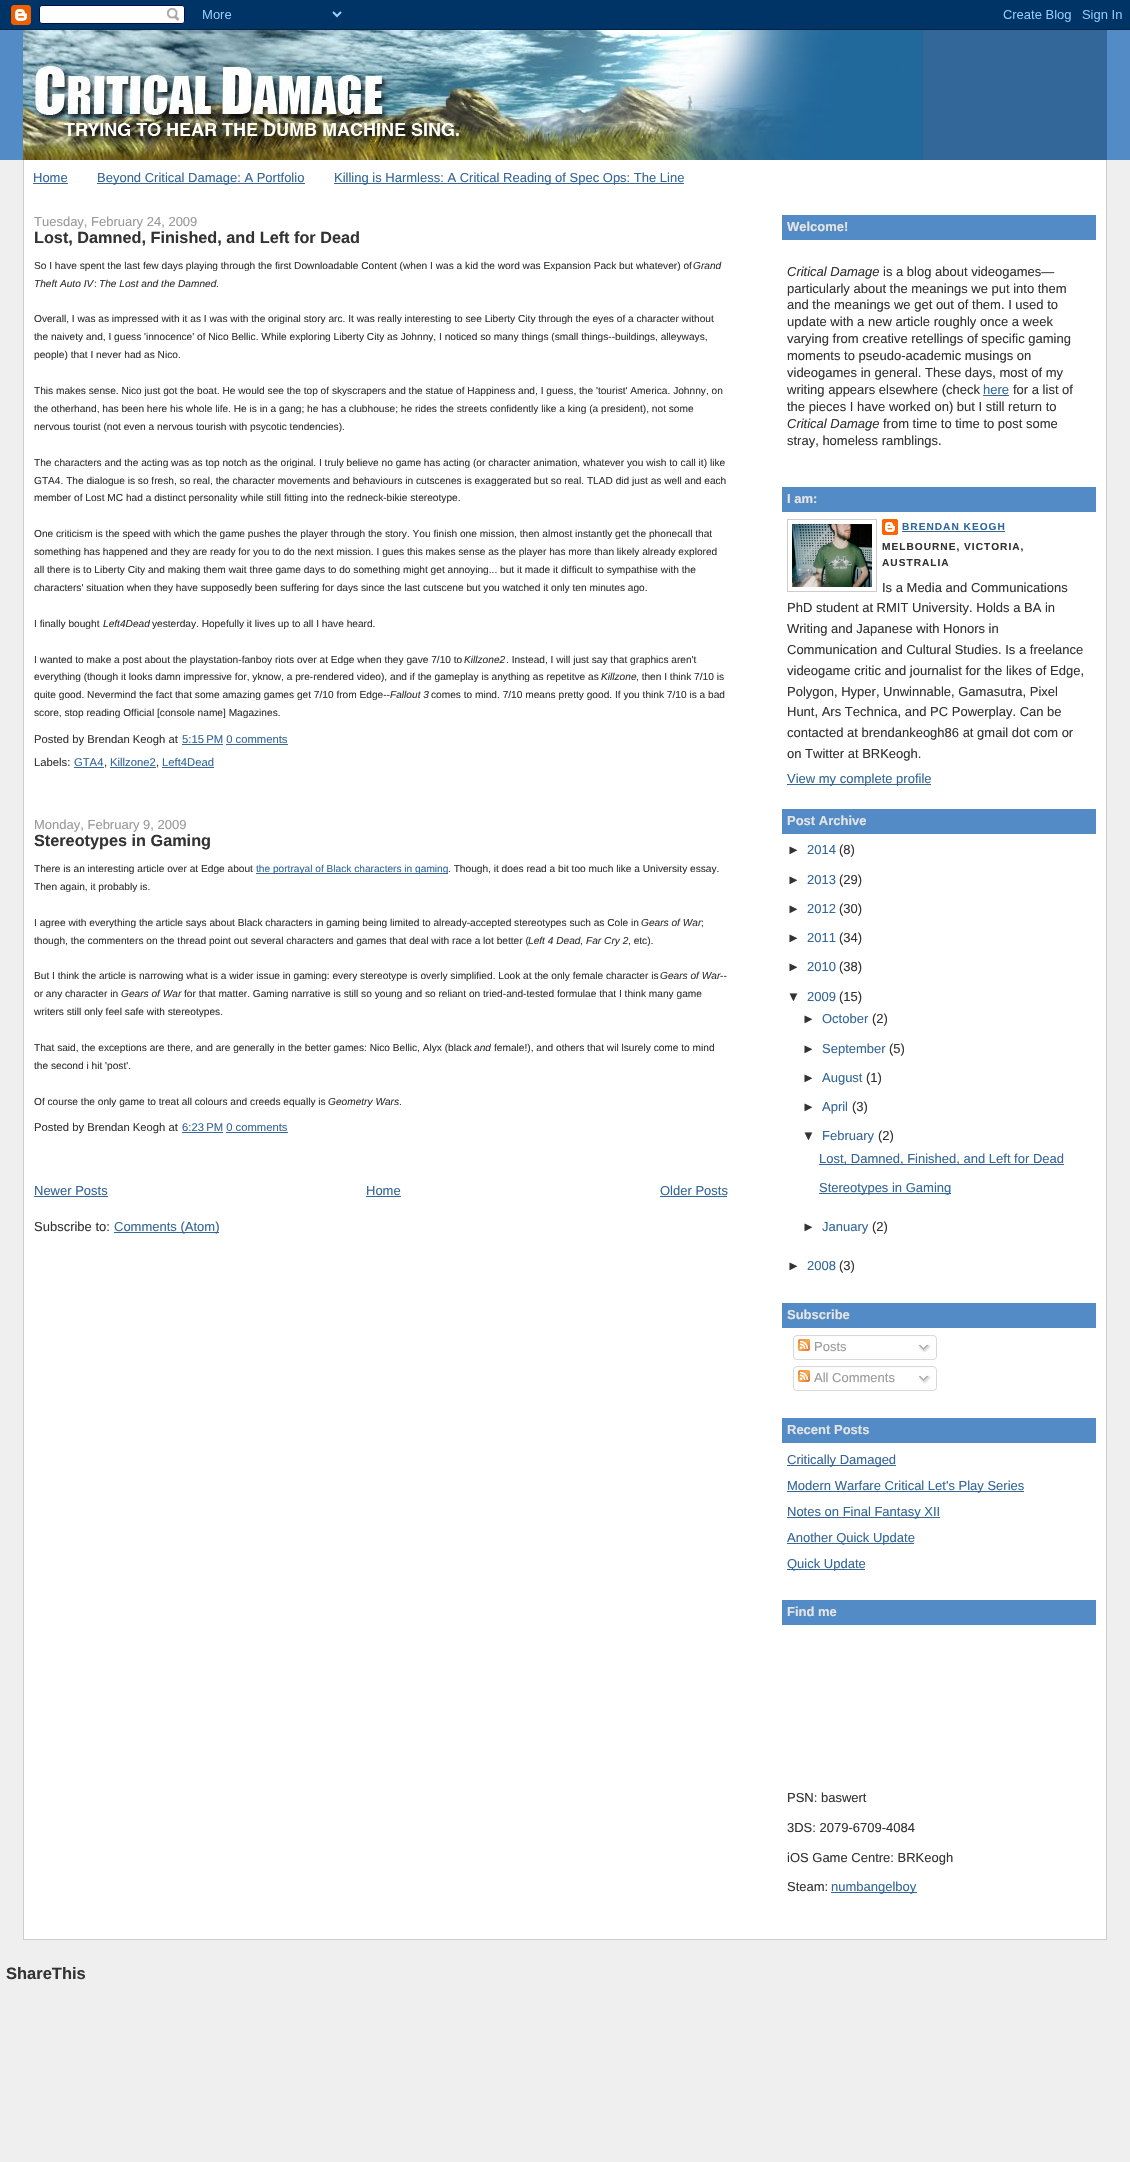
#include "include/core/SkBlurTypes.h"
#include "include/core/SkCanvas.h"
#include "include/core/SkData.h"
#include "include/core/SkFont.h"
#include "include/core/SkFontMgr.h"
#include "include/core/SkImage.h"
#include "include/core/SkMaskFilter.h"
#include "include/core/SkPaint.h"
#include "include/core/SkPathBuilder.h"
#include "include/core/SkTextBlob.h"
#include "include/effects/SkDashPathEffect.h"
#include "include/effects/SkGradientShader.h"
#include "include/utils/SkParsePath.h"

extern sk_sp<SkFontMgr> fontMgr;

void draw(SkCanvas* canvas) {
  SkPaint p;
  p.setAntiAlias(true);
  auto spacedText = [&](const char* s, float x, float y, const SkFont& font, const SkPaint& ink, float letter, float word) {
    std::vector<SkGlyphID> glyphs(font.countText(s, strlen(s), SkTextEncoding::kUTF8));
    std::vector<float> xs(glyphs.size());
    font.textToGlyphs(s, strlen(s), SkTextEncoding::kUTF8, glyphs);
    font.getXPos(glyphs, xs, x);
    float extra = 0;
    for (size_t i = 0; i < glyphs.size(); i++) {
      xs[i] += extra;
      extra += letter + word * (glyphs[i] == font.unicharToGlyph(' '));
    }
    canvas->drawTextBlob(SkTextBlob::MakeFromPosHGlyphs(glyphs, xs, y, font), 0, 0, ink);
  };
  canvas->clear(SkColorSetRGB(239, 239, 239));
  canvas->drawImageRect(SkImages::DeferredFromEncodedData(SkData::MakeFromFileName("images/1.png")), SkRect::MakeLTRB(0, 0, 1130, 30), SkSamplingOptions());
  p.setColor(SkColorSetRGB(82, 139, 197));
  canvas->drawRect(SkRect::MakeLTRB(0, 30, 1130, 160), p);
  p.setColor(SkColorSetRGB(51, 102, 153));
  canvas->drawRect(SkRect::MakeLTRB(923, 30, 1107, 160), p);
  canvas->drawImageRect(SkImages::DeferredFromEncodedData(SkData::MakeFromFileName("images/2.png")), SkRect::MakeLTRB(23, 30, 923, 160), SkSamplingOptions());
  p.setColor(SK_ColorWHITE);
  canvas->drawRect(SkRect::MakeLTRB(24, 160, 1106, 1939), p);
  p.setColor(SkColorSetRGB(204, 204, 204));
  canvas->drawRect(SkRect::MakeLTRB(1106, 160, 1107, 1940), p);
  canvas->drawRect(SkRect::MakeLTRB(23, 1939, 1107, 1940), p);
  canvas->drawRect(SkRect::MakeLTRB(23, 160, 24, 1940), p);
  p.setColor(SkColorSetRGB(51, 102, 153));
  canvas->drawRect(SkRect::MakeLTRB(33, 183, 68, 184), p);
  canvas->drawRect(SkRect::MakeLTRB(97, 183, 305, 184), p);
  canvas->drawRect(SkRect::MakeLTRB(334, 183, 684, 184), p);
  canvas->drawRect(SkRect::MakeLTRB(182, 744, 223, 745), p);
  canvas->drawRect(SkRect::MakeLTRB(226, 744, 288, 745), p);
  canvas->drawRect(SkRect::MakeLTRB(74, 767, 104, 768), p);
  canvas->drawRect(SkRect::MakeLTRB(110, 767, 156, 768), p);
  canvas->drawRect(SkRect::MakeLTRB(162, 767, 214, 768), p);
  canvas->drawRect(SkRect::MakeLTRB(256, 873, 448, 874), p);
  canvas->drawRect(SkRect::MakeLTRB(182, 1132, 223, 1133), p);
  canvas->drawRect(SkRect::MakeLTRB(226, 1132, 288, 1133), p);
  canvas->drawRect(SkRect::MakeLTRB(34, 1196, 108, 1197), p);
  canvas->drawRect(SkRect::MakeLTRB(366, 1196, 401, 1197), p);
  canvas->drawRect(SkRect::MakeLTRB(660, 1196, 727, 1197), p);
  canvas->drawRect(SkRect::MakeLTRB(114, 1232, 219, 1233), p);
  p.setColor(SkColorSetRGB(82, 139, 197));
  canvas->drawRect(SkRect::MakeLTRB(782, 215, 1096, 240), p);
  p.setColor(SkColorSetRGB(51, 102, 153));
  canvas->drawRect(SkRect::MakeLTRB(983, 395, 1009, 396), p);
  p.setColor(SkColorSetRGB(82, 139, 197));
  canvas->drawRect(SkRect::MakeLTRB(782, 487, 1096, 512), p);
  p.setStyle(SkPaint::kStroke_Style);
  p.setStrokeWidth(1);
  p.setColor(SkColorSetRGB(204, 204, 204));
  canvas->drawRect(SkRect::MakeLTRB(787.5f, 519.5f, 876.5f, 591.5f), p);
  canvas->drawImageRect(SkImages::DeferredFromEncodedData(SkData::MakeFromFileName("images/3.png")), SkRect::MakeLTRB(792, 524, 872, 587), SkSamplingOptions());
  canvas->drawImageRect(SkImages::DeferredFromEncodedData(SkData::MakeFromFileName("images/4.png")), SkRect::MakeLTRB(882, 519, 898, 535), SkSamplingOptions());
  p.setStyle(SkPaint::kFill_Style);
  p.setColor(SkColorSetRGB(51, 102, 153));
  canvas->drawRect(SkRect::MakeLTRB(902, 531, 1005, 532), p);
  canvas->drawRect(SkRect::MakeLTRB(787, 784, 931, 785), p);
  p.setColor(SkColorSetRGB(82, 139, 197));
  canvas->drawRect(SkRect::MakeLTRB(782, 809, 1096, 834), p);
  p.setColor(SkColorSetRGB(51, 102, 153));
  canvas->drawRect(SkRect::MakeLTRB(819, 1164, 1064, 1165), p);
  canvas->drawRect(SkRect::MakeLTRB(819, 1193, 951, 1194), p);
  p.setColor(SkColorSetRGB(82, 139, 197));
  canvas->drawRect(SkRect::MakeLTRB(782, 1303, 1096, 1328), p);
  canvas->drawImageRect(SkImages::DeferredFromEncodedData(SkData::MakeFromFileName("images/5.png")), SkRect::MakeLTRB(793, 1335, 937, 1357), SkSamplingOptions());
  canvas->drawImageRect(SkImages::DeferredFromEncodedData(SkData::MakeFromFileName("images/6.png")), SkRect::MakeLTRB(798, 1339, 810, 1351), SkSamplingOptions());
  canvas->drawImageRect(SkImages::DeferredFromEncodedData(SkData::MakeFromFileName("images/7.png")), SkRect::MakeLTRB(918, 1344, 931, 1353), SkSamplingOptions());
  canvas->drawImageRect(SkImages::DeferredFromEncodedData(SkData::MakeFromFileName("images/8.png")), SkRect::MakeLTRB(793, 1357, 937, 1360), SkSamplingOptions());
  canvas->drawImageRect(SkImages::DeferredFromEncodedData(SkData::MakeFromFileName("images/5.png")), SkRect::MakeLTRB(793, 1366, 937, 1388), SkSamplingOptions());
  canvas->drawImageRect(SkImages::DeferredFromEncodedData(SkData::MakeFromFileName("images/6.png")), SkRect::MakeLTRB(798, 1370, 810, 1382), SkSamplingOptions());
  canvas->drawImageRect(SkImages::DeferredFromEncodedData(SkData::MakeFromFileName("images/7.png")), SkRect::MakeLTRB(918, 1375, 931, 1384), SkSamplingOptions());
  canvas->drawImageRect(SkImages::DeferredFromEncodedData(SkData::MakeFromFileName("images/8.png")), SkRect::MakeLTRB(793, 1388, 937, 1391), SkSamplingOptions());
  canvas->drawRect(SkRect::MakeLTRB(782, 1418, 1096, 1443), p);
  p.setColor(SkColorSetRGB(51, 102, 153));
  canvas->drawRect(SkRect::MakeLTRB(787, 1465, 896, 1466), p);
  canvas->drawRect(SkRect::MakeLTRB(787, 1491, 1024, 1492), p);
  canvas->drawRect(SkRect::MakeLTRB(787, 1517, 940, 1518), p);
  canvas->drawRect(SkRect::MakeLTRB(787, 1543, 914, 1544), p);
  canvas->drawRect(SkRect::MakeLTRB(787, 1569, 865, 1570), p);
  p.setColor(SkColorSetRGB(82, 139, 197));
  canvas->drawRect(SkRect::MakeLTRB(782, 1600, 1096, 1625), p);
  p.setColor(SkColorSetRGB(51, 102, 153));
  canvas->drawRect(SkRect::MakeLTRB(831, 1892, 917, 1893), p);
  SkFont font1(fontMgr->matchFamilyStyle("Liberation Sans", SkFontStyle::Normal()), 13);
  font1.setSubpixel(true);
  canvas->drawString("Home", 33, 182, font1, p);
  canvas->drawString("Beyond Critical Damage: A Portfolio", 97, 182, font1, p);
  canvas->drawString("Killing is Harmless: A Critical Reading of Spec Ops: The Line", 334, 182, font1, p);
  p.setColor(SkColorSetRGB(153, 153, 153));
  canvas->drawString("Tuesday, February 24, 2009", 34, 226, font1, p);
  SkFont font2(fontMgr->matchFamilyStyle("Liberation Sans", SkFontStyle::Bold()), 16.25f);
  font2.setSubpixel(true);
  p.setColor(SkColorSetRGB(51, 51, 51));
  canvas->drawString("Lost, Damned, Finished, and Left for Dead", 34, 243, font2, p);
  SkFont font3(fontMgr->matchFamilyStyle("Liberation Sans", SkFontStyle::Normal()), 10.15f);
  font3.setSubpixel(true);
  canvas->drawString("So I have spent the last few days playing through the first Downloadable Content (when I was a kid the word was Expansion Pack but whatever) of", 34, 269, font3, p);
  SkFont font4(fontMgr->matchFamilyStyle("Liberation Sans", SkFontStyle::Italic()), 10.15f);
  font4.setSubpixel(true);
  canvas->drawString("Grand", 693, 269, font4, p);
  canvas->drawString("Theft Auto IV", 34, 287, font4, p);
  canvas->drawString("The Lost and the Damned", 99, 287, font4, p);
  canvas->drawString(":", 94, 287, font3, p);
  canvas->drawString(".", 216, 287, font3, p);
  canvas->drawString("Overall, I was as impressed with it as I was with the original story arc. It was really interesting to see Liberty City through the eyes of a character without", 34, 322, font3, p);
  canvas->drawString("the naivety and, I guess 'innocence' of Nico Bellic. While exploring Liberty City as Johnny, I noticed so many things (small things--buildings, alleyways,", 34, 340, font3, p);
  canvas->drawString("people) that I never had as Nico.", 34, 358, font3, p);
  canvas->drawString("This makes sense. Nico just got the boat. He would see the top of skyscrapers and the statue of Happiness and, I guess, the 'tourist' America. Johnny, on", 34, 394, font3, p);
  canvas->drawString("the otherhand, has been here his whole life. He is in a gang; he has a clubhouse; he rides the streets confidently like a king (a president), not some", 34, 412, font3, p);
  canvas->drawString("nervous tourist (not even a nervous tourish with psycotic tendencies).", 34, 430, font3, p);
  canvas->drawString("The characters and the acting was as top notch as the original. I truly believe no game has acting (or character animation, whatever you wish to call it) like", 34, 466, font3, p);
  canvas->drawString("GTA4. The dialogue is so fresh, so real, the character movements and behaviours in cutscenes is exaggerated but so real. TLAD did just as well and each", 34, 484, font3, p);
  canvas->drawString("member of Lost MC had a distinct personality while still fitting into the redneck-bikie stereotype.", 34, 501, font3, p);
  canvas->drawString("One criticism is the speed with which the game pushes the player through the story. You finish one mission, then almost instantly get the phonecall that", 34, 537, font3, p);
  canvas->drawString("something has happened and they are ready for you to do the next mission. I gues this makes sense as the player has more than likely already explored", 34, 555, font3, p);
  canvas->drawString("all there is to Liberty City and making them wait three game days to do something might get annoying... but it made it difficult to sympathise with the", 34, 573, font3, p);
  canvas->drawString("characters' situation when they have supposedly been suffering for days since the last cutscene but you watched it only ten minutes ago.", 34, 591, font3, p);
  canvas->drawString("I finally bought", 34, 627, font3, p);
  canvas->drawString("Left4Dead", 103, 627, font4, p);
  canvas->drawString("yesterday. Hopefully it lives up to all I have heard.", 152, 627, font3, p);
  canvas->drawString("I wanted to make a post about the playstation-fanboy riots over at Edge when they gave 7/10 to", 34, 663, font3, p);
  canvas->drawString("Killzone2", 464, 663, font4, p);
  canvas->drawString(". Instead, I will just say that graphics aren't", 506, 663, font3, p);
  canvas->drawString("everything (though it looks damn impressive for, yknow, a pre-rendered video), and if the gameplay is anything as repetitve as", 34, 680, font3, p);
  canvas->drawString("Killzone", 601, 680, font4, p);
  canvas->drawString(", then I think 7/10 is", 636, 680, font3, p);
  canvas->drawString("quite good. Nevermind the fact that some amazing games get 7/10 from Edge--", 34, 698, font3, p);
  canvas->drawString("Fallout 3", 390, 698, font4, p);
  canvas->drawString("comes to mind. 7/10 means pretty good. If you think 7/10 is a bad", 431, 698, font3, p);
  canvas->drawString("score, stop reading Official [console name] Magazines.", 34, 716, font3, p);
  SkFont font5(fontMgr->matchFamilyStyle("Liberation Sans", SkFontStyle::Normal()), 11.25f);
  font5.setSubpixel(true);
  canvas->drawString("Posted by Brendan Keogh at", 34, 743, font5, p);
  p.setColor(SkColorSetRGB(51, 102, 153));
  canvas->drawString("5:15 PM 0 comments", 182, 743, font5, p);
  p.setColor(SkColorSetRGB(51, 51, 51));
  canvas->drawString("Labels:", 34, 766, font5, p);
  p.setColor(SkColorSetRGB(51, 102, 153));
  canvas->drawString("GTA4", 74, 766, font5, p);
  p.setColor(SkColorSetRGB(51, 51, 51));
  canvas->drawString(",", 104, 766, font5, p);
  p.setColor(SkColorSetRGB(51, 102, 153));
  canvas->drawString("Killzone2", 110, 766, font5, p);
  p.setColor(SkColorSetRGB(51, 51, 51));
  canvas->drawString(",", 156, 766, font5, p);
  p.setColor(SkColorSetRGB(51, 102, 153));
  canvas->drawString("Left4Dead", 162, 766, font5, p);
  p.setColor(SkColorSetRGB(153, 153, 153));
  canvas->drawString("Monday, February 9, 2009", 34, 829, font1, p);
  p.setColor(SkColorSetRGB(51, 51, 51));
  canvas->drawString("Stereotypes in Gaming", 34, 846, font2, p);
  canvas->drawString("There is an interesting article over at Edge about", 34, 872, font3, p);
  p.setColor(SkColorSetRGB(51, 102, 153));
  canvas->drawString("the portrayal of Black characters in gaming", 256, 872, font3, p);
  p.setColor(SkColorSetRGB(51, 51, 51));
  canvas->drawString(". Though, it does read a bit too much like a University essay.", 448, 872, font3, p);
  canvas->drawString("Then again, it probably is.", 34, 890, font3, p);
  canvas->drawString("I agree with everything the article says about Black characters in gaming being limited to already-accepted stereotypes such as Cole in", 34, 926, font3, p);
  canvas->drawString("Gears of War", 641, 926, font4, p);
  canvas->drawString(";", 701, 926, font3, p);
  canvas->drawString("though, the commenters on the thread point out several characters and games that deal with race a lot better (", 34, 944, font3, p);
  canvas->drawString("Left 4 Dead", 528, 944, font4, p);
  canvas->drawString(",", 580, 944, font3, p);
  canvas->drawString("Far Cry 2", 586, 944, font4, p);
  canvas->drawString(", etc)", 628, 944, font3, p);
  canvas->drawString(".", 651, 944, font4, p);
  canvas->drawString("But I think the article is narrowing what is a wider issue in gaming: every stereotype is overly simplified. Look at the only female character is", 34, 979, font3, p);
  canvas->drawString("Gears of War", 660, 979, font4, p);
  canvas->drawString("--", 720, 979, font3, p);
  canvas->drawString("or any character in", 34, 997, font3, p);
  canvas->drawString("Gears of War", 121, 997, font4, p);
  canvas->drawString("for that matter. Gaming narrative is still so young and so reliant on tried-and-tested formulae that I think many game", 184, 997, font3, p);
  canvas->drawString("writers still only feel safe with stereotypes.", 34, 1015, font3, p);
  canvas->drawString("That said, the exceptions are there, and are generally in the better games: Nico Bellic, Alyx (black", 34, 1051, font3, p);
  canvas->drawString("and", 474, 1051, font4, p);
  canvas->drawString("female!), and others that wil lsurely come to mind", 494, 1051, font3, p);
  canvas->drawString("the second i hit 'post'.", 34, 1069, font3, p);
  canvas->drawString("Of course the only game to treat all colours and creeds equally is", 34, 1105, font3, p);
  canvas->drawString("Geometry Wars", 328, 1105, font4, p);
  canvas->drawString(".", 399, 1105, font3, p);
  canvas->drawString("Posted by Brendan Keogh at", 34, 1131, font5, p);
  p.setColor(SkColorSetRGB(51, 102, 153));
  canvas->drawString("6:23 PM 0 comments", 182, 1131, font5, p);
  canvas->drawString("Newer Posts", 34, 1195, font1, p);
  canvas->drawString("Home", 366, 1195, font1, p);
  canvas->drawString("Older Posts", 660, 1195, font1, p);
  p.setColor(SkColorSetRGB(51, 51, 51));
  canvas->drawString("Subscribe to:", 34, 1231, font1, p);
  p.setColor(SkColorSetRGB(51, 102, 153));
  canvas->drawString("Comments (Atom)", 114, 1231, font1, p);
  SkFont font6(fontMgr->matchFamilyStyle("Liberation Sans", SkFontStyle::Bold()), 13);
  font6.setSubpixel(true);
  p.setColor(SkColorSetRGB(229, 229, 229));
  canvas->drawString("Welcome!", 787, 231, font6, p);
  SkFont font7(fontMgr->matchFamilyStyle("Liberation Sans", SkFontStyle::Italic()), 13);
  font7.setSubpixel(true);
  p.setColor(SkColorSetRGB(51, 51, 51));
  canvas->drawString("Critical Damage", 787, 276, font7, p);
  canvas->drawString("is a blog about videogames—", 883, 276, font1, p);
  canvas->drawString("particularly about the meanings we put into them", 787, 293, font1, p);
  canvas->drawString("and the meanings we get out of them. I used to", 787, 309, font1, p);
  canvas->drawString("update with a new article roughly once a week", 787, 326, font1, p);
  canvas->drawString("varying from creative retellings of specific gaming", 787, 343, font1, p);
  canvas->drawString("moments to pseudo-academic musings on", 787, 360, font1, p);
  canvas->drawString("videogames in general. These days, most of my", 787, 377, font1, p);
  canvas->drawString("writing appears elsewhere (check", 787, 394, font1, p);
  p.setColor(SkColorSetRGB(51, 102, 153));
  canvas->drawString("here", 983, 394, font1, p);
  p.setColor(SkColorSetRGB(51, 51, 51));
  canvas->drawString("for a list of", 1013, 394, font1, p);
  canvas->drawString("the pieces I have worked on) but I still return to", 787, 411, font1, p);
  canvas->drawString("Critical Damage", 787, 428, font7, p);
  canvas->drawString("from time to time to post some", 883, 428, font1, p);
  canvas->drawString("stray, homeless ramblings.", 787, 445, font1, p);
  p.setColor(SkColorSetRGB(229, 229, 229));
  canvas->drawString("I am:", 787, 503, font6, p);
  SkFont font8(fontMgr->matchFamilyStyle("Liberation Sans", SkFontStyle::Bold()), 10.15f);
  font8.setSubpixel(true);
  p.setColor(SkColorSetRGB(51, 102, 153));
  spacedText("BRENDAN KEOGH", 902, 530, font8, p, 1, 0);
  p.setColor(SkColorSetRGB(51, 51, 51));
  spacedText("MELBOURNE, VICTORIA,", 882, 550, font8, p, 1, 0);
  spacedText("AUSTRALIA", 882, 566, font8, p, 1, 0);
  canvas->drawString("Is a Media and Communications", 882, 592, font1, p);
  canvas->drawString("PhD student at RMIT University. Holds a BA in", 787, 612, font1, p);
  canvas->drawString("Writing and Japanese with Honors in", 787, 633, font1, p);
  canvas->drawString("Communication and Cultural Studies. Is a freelance", 787, 654, font1, p);
  canvas->drawString("videogame critic and journalist for the likes of Edge,", 787, 675, font1, p);
  canvas->drawString("Polygon, Hyper, Unwinnable, Gamasutra, Pixel", 787, 696, font1, p);
  canvas->drawString("Hunt, Ars Technica, and PC Powerplay. Can be", 787, 716, font1, p);
  canvas->drawString("contacted at brendankeogh86 at gmail dot com or", 787, 737, font1, p);
  canvas->drawString("on Twitter at BRKeogh.", 787, 758, font1, p);
  p.setColor(SkColorSetRGB(51, 102, 153));
  canvas->drawString("View my complete profile", 787, 783, font1, p);
  p.setColor(SkColorSetRGB(229, 229, 229));
  canvas->drawString("Post Archive", 787, 825, font6, p);
  p.setColor(SkColorSetRGB(51, 51, 51));
  canvas->drawString("►", 787, 854, font1, p);
  p.setColor(SkColorSetRGB(51, 102, 153));
  canvas->drawString("2014", 807, 854, font1, p);
  p.setColor(SkColorSetRGB(51, 51, 51));
  canvas->drawString("(8)", 839, 854, font1, p);
  canvas->drawString("►", 787, 884, font1, p);
  p.setColor(SkColorSetRGB(51, 102, 153));
  canvas->drawString("2013", 807, 884, font1, p);
  p.setColor(SkColorSetRGB(51, 51, 51));
  canvas->drawString("(29)", 839, 884, font1, p);
  canvas->drawString("►", 787, 913, font1, p);
  p.setColor(SkColorSetRGB(51, 102, 153));
  canvas->drawString("2012", 807, 913, font1, p);
  p.setColor(SkColorSetRGB(51, 51, 51));
  canvas->drawString("(30)", 839, 913, font1, p);
  canvas->drawString("►", 787, 942, font1, p);
  p.setColor(SkColorSetRGB(51, 102, 153));
  canvas->drawString("2011", 807, 942, font1, p);
  p.setColor(SkColorSetRGB(51, 51, 51));
  canvas->drawString("(34)", 839, 942, font1, p);
  canvas->drawString("►", 787, 971, font1, p);
  p.setColor(SkColorSetRGB(51, 102, 153));
  canvas->drawString("2010", 807, 971, font1, p);
  p.setColor(SkColorSetRGB(51, 51, 51));
  canvas->drawString("(38)", 839, 971, font1, p);
  canvas->drawString("▼", 787, 1001, font1, p);
  p.setColor(SkColorSetRGB(51, 102, 153));
  canvas->drawString("2009", 807, 1001, font1, p);
  p.setColor(SkColorSetRGB(51, 51, 51));
  canvas->drawString("(15)", 839, 1001, font1, p);
  canvas->drawString("►", 802, 1023, font1, p);
  p.setColor(SkColorSetRGB(51, 102, 153));
  canvas->drawString("October", 822, 1023, font1, p);
  p.setColor(SkColorSetRGB(51, 51, 51));
  canvas->drawString("(2)", 872, 1023, font1, p);
  canvas->drawString("►", 802, 1053, font1, p);
  p.setColor(SkColorSetRGB(51, 102, 153));
  canvas->drawString("September", 822, 1053, font1, p);
  p.setColor(SkColorSetRGB(51, 51, 51));
  canvas->drawString("(5)", 889, 1053, font1, p);
  canvas->drawString("►", 802, 1082, font1, p);
  p.setColor(SkColorSetRGB(51, 102, 153));
  canvas->drawString("August", 822, 1082, font1, p);
  p.setColor(SkColorSetRGB(51, 51, 51));
  canvas->drawString("(1)", 866, 1082, font1, p);
  canvas->drawString("►", 802, 1111, font1, p);
  p.setColor(SkColorSetRGB(51, 102, 153));
  canvas->drawString("April", 822, 1111, font1, p);
  p.setColor(SkColorSetRGB(51, 51, 51));
  canvas->drawString("(3)", 852, 1111, font1, p);
  canvas->drawString("▼", 802, 1140, font1, p);
  p.setColor(SkColorSetRGB(51, 102, 153));
  canvas->drawString("February", 822, 1140, font1, p);
  p.setColor(SkColorSetRGB(51, 51, 51));
  canvas->drawString("(2)", 878, 1140, font1, p);
  p.setColor(SkColorSetRGB(51, 102, 153));
  canvas->drawString("Lost, Damned, Finished, and Left for Dead", 819, 1163, font1, p);
  canvas->drawString("Stereotypes in Gaming", 819, 1192, font1, p);
  p.setColor(SkColorSetRGB(51, 51, 51));
  canvas->drawString("►", 802, 1231, font1, p);
  p.setColor(SkColorSetRGB(51, 102, 153));
  canvas->drawString("January", 822, 1231, font1, p);
  p.setColor(SkColorSetRGB(51, 51, 51));
  canvas->drawString("(2)", 872, 1231, font1, p);
  canvas->drawString("►", 787, 1270, font1, p);
  p.setColor(SkColorSetRGB(51, 102, 153));
  canvas->drawString("2008", 807, 1270, font1, p);
  p.setColor(SkColorSetRGB(51, 51, 51));
  canvas->drawString("(3)", 839, 1270, font1, p);
  p.setColor(SkColorSetRGB(229, 229, 229));
  canvas->drawString("Subscribe", 787, 1319, font6, p);
  p.setColor(SkColorSetRGB(153, 153, 153));
  canvas->drawString("Posts", 814, 1351, font1, p);
  canvas->drawString("All Comments", 814, 1382, font1, p);
  p.setColor(SkColorSetRGB(229, 229, 229));
  canvas->drawString("Recent Posts", 787, 1434, font6, p);
  p.setColor(SkColorSetRGB(51, 102, 153));
  canvas->drawString("Critically Damaged", 787, 1464, font1, p);
  canvas->drawString("Modern Warfare Critical Let's Play Series", 787, 1490, font1, p);
  canvas->drawString("Notes on Final Fantasy XII", 787, 1516, font1, p);
  canvas->drawString("Another Quick Update", 787, 1542, font1, p);
  canvas->drawString("Quick Update", 787, 1568, font1, p);
  p.setColor(SkColorSetRGB(229, 229, 229));
  canvas->drawString("Find me", 787, 1616, font6, p);
  p.setColor(SkColorSetRGB(51, 51, 51));
  canvas->drawString("PSN: baswert", 787, 1802, font1, p);
  canvas->drawString("3DS: 2079-6709-4084", 787, 1832, font1, p);
  canvas->drawString("iOS Game Centre: BRKeogh", 787, 1862, font1, p);
  canvas->drawString("Steam:", 787, 1891, font1, p);
  p.setColor(SkColorSetRGB(51, 102, 153));
  canvas->drawString("numbangelboy", 831, 1891, font1, p);
  SkFont font9(fontMgr->matchFamilyStyle("Liberation Sans", SkFontStyle::Bold()), 16.5f);
  font9.setSubpixel(true);
  p.setColor(SkColorSetRGB(51, 51, 51));
  canvas->drawString("ShareThis", 6, 1979, font9, p);
}
